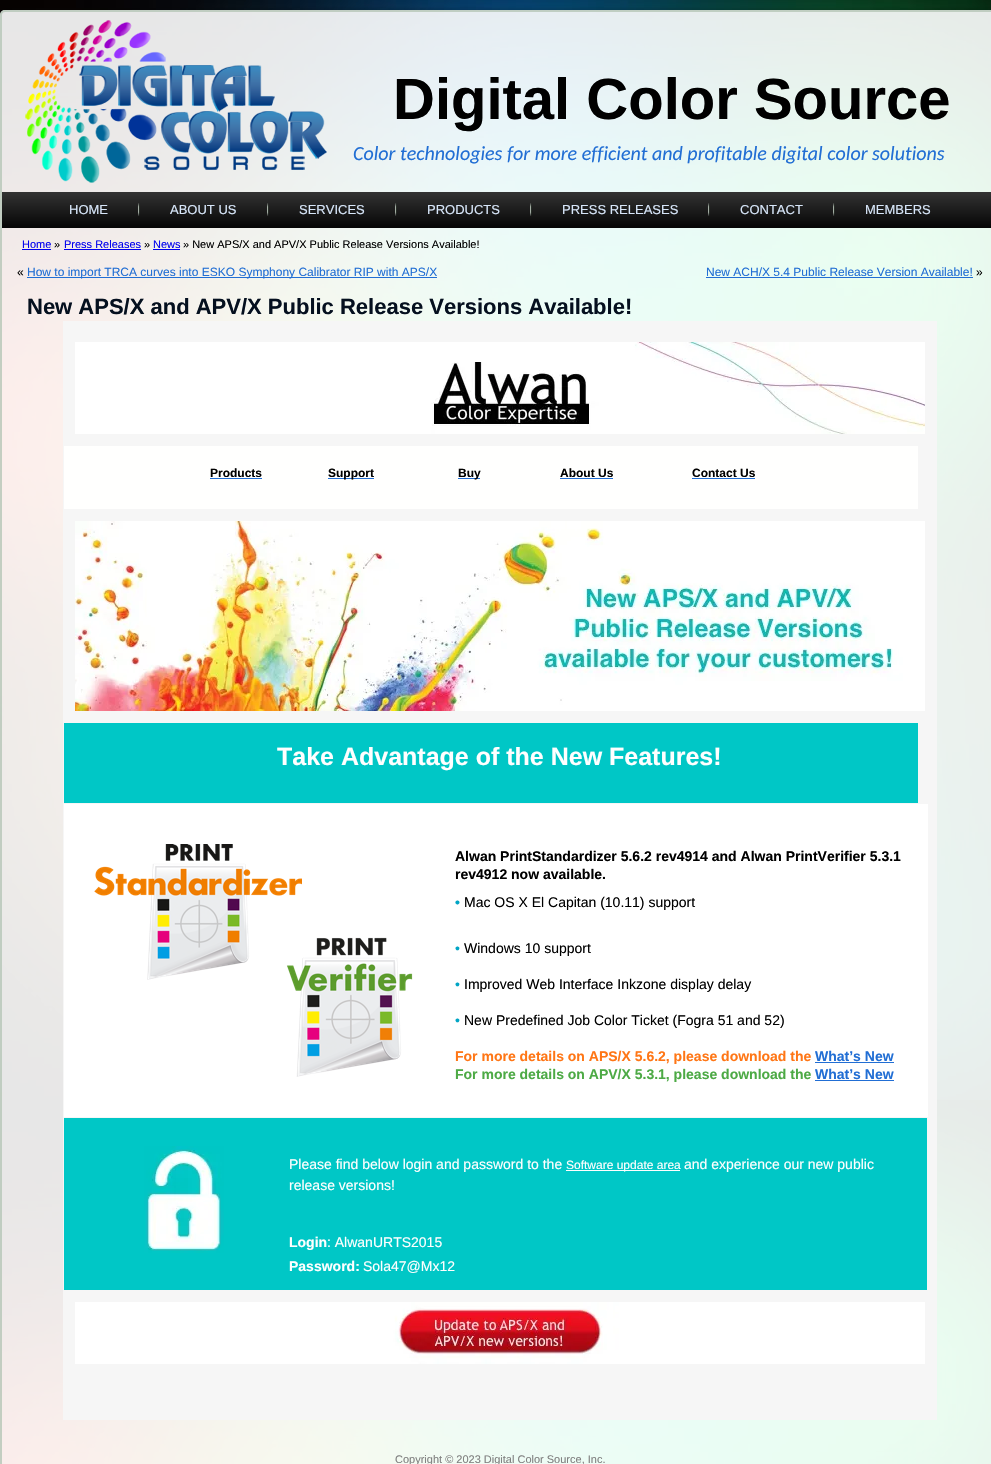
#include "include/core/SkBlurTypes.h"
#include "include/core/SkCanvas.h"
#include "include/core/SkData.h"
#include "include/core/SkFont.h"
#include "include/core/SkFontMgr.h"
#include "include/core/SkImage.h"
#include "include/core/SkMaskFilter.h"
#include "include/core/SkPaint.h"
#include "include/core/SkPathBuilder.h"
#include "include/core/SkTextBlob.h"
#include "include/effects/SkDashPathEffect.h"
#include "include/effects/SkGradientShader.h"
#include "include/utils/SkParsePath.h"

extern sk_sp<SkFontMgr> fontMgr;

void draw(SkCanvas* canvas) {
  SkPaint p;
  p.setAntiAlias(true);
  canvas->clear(SK_ColorWHITE);
  canvas->drawImageRect(SkImages::DeferredFromEncodedData(SkData::MakeFromFileName("images/1.png")), SkRect::MakeLTRB(0, 0, 991, 1464), SkSamplingOptions());
  canvas->save();
  canvas->clipPath(SkPathBuilder(SkPathFillType::kEvenOdd).moveTo(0, 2).lineTo(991, 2).lineTo(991, 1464).lineTo(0, 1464).close().moveTo(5, 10).lineTo(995, 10).cubicTo(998, 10, 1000, 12, 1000, 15).lineTo(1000, 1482).cubicTo(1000, 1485, 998, 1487, 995, 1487).lineTo(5, 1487).cubicTo(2, 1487, 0, 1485, 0, 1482).lineTo(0, 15).cubicTo(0, 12, 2, 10, 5, 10).close().detach(), true);
  p.setColor(SkColorSetARGB(33, 0, 0, 0));
  p.setMaskFilter(SkMaskFilter::MakeBlur(kNormal_SkBlurStyle, 1.5f));
  canvas->drawRoundRect(SkRect::MakeLTRB(-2, 8, 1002, 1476), 7, 7, p);
  p.setMaskFilter(nullptr);
  canvas->restore();
  p.setColor(SkColorSetARGB(230, 255, 255, 255));
  canvas->drawRoundRect(SkRect::MakeLTRB(0, 10, 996, 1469), 5, 5, p);
  p.setStyle(SkPaint::kStroke_Style);
  p.setStrokeWidth(2);
  p.setColor(SkColorSetARGB(204, 181, 197, 182));
  canvas->drawRoundRect(SkRect::MakeLTRB(1, 11, 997, 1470), 4, 4, p);
  canvas->drawImageRect(SkImages::DeferredFromEncodedData(SkData::MakeFromFileName("images/2.png")), SkRect::MakeLTRB(25, 20, 327, 183), SkSamplingOptions());
  p.setStyle(SkPaint::kFill_Style);
  {
    const SkColor colors[] = {SkColorSetRGB(51, 51, 51), SkColorSetRGB(5, 5, 5)};
    const float stops[] = {0, 1};
    const SkPoint ends[] = {{500, 192}, {500, 228}};
    p.setShader(SkGradientShader::MakeLinear(ends, colors, stops, 2, SkTileMode::kClamp));
    p.setAlpha(255);
  }
  canvas->drawRect(SkRect::MakeLTRB(2, 192, 991, 228), p);
  canvas->drawImageRect(SkImages::DeferredFromEncodedData(SkData::MakeFromFileName("images/3.png")), SkRect::MakeLTRB(138, 203, 140, 216), SkSamplingOptions());
  canvas->drawImageRect(SkImages::DeferredFromEncodedData(SkData::MakeFromFileName("images/3.png")), SkRect::MakeLTRB(267, 203, 269, 216), SkSamplingOptions());
  canvas->drawImageRect(SkImages::DeferredFromEncodedData(SkData::MakeFromFileName("images/3.png")), SkRect::MakeLTRB(395, 203, 397, 216), SkSamplingOptions());
  canvas->drawImageRect(SkImages::DeferredFromEncodedData(SkData::MakeFromFileName("images/3.png")), SkRect::MakeLTRB(530, 203, 532, 216), SkSamplingOptions());
  canvas->drawImageRect(SkImages::DeferredFromEncodedData(SkData::MakeFromFileName("images/3.png")), SkRect::MakeLTRB(708, 203, 710, 216), SkSamplingOptions());
  canvas->drawImageRect(SkImages::DeferredFromEncodedData(SkData::MakeFromFileName("images/3.png")), SkRect::MakeLTRB(833, 203, 835, 216), SkSamplingOptions());
  p.setShader(nullptr);
  p.setColor(SkColorSetRGB(0, 0, 238));
  canvas->drawRect(SkRect::MakeLTRB(22, 249, 51, 250), p);
  canvas->drawRect(SkRect::MakeLTRB(64, 249, 141, 250), p);
  canvas->drawRect(SkRect::MakeLTRB(153, 249, 180, 250), p);
  p.setColor(SkColorSetRGB(33, 110, 212));
  canvas->drawRect(SkRect::MakeLTRB(27, 277, 437, 278), p);
  canvas->drawRect(SkRect::MakeLTRB(706, 277, 973, 278), p);
  p.setColor(SkColorSetRGB(246, 246, 246));
  canvas->drawRect(SkRect::MakeLTRB(63, 321, 937, 1420), p);
  canvas->drawImageRect(SkImages::DeferredFromEncodedData(SkData::MakeFromFileName("images/4.png")), SkRect::MakeLTRB(75, 342, 925, 434), SkSamplingOptions());
  p.setColor(SkColorSetRGB(255, 255, 254));
  canvas->drawRect(SkRect::MakeLTRB(64, 446, 918, 509), p);
  p.setColor(SkColorSetRGB(33, 110, 212));
  canvas->drawRect(SkRect::MakeLTRB(210, 478, 262, 479), p);
  canvas->drawRect(SkRect::MakeLTRB(328, 478, 374, 479), p);
  canvas->drawRect(SkRect::MakeLTRB(458, 478, 480, 479), p);
  canvas->drawRect(SkRect::MakeLTRB(560, 478, 613, 479), p);
  canvas->drawRect(SkRect::MakeLTRB(692, 478, 755, 479), p);
  canvas->drawImageRect(SkImages::DeferredFromEncodedData(SkData::MakeFromFileName("images/5.png")), SkRect::MakeLTRB(75, 521, 925, 711), SkSamplingOptions());
  p.setColor(SkColorSetRGB(0, 199, 198));
  canvas->drawRect(SkRect::MakeLTRB(64, 723, 918, 803), p);
  p.setColor(SK_ColorWHITE);
  canvas->drawRect(SkRect::MakeLTRB(64, 804, 928, 1117), p);
  canvas->drawImageRect(SkImages::DeferredFromEncodedData(SkData::MakeFromFileName("images/6.png")), SkRect::MakeLTRB(94, 844, 413, 1077), SkSamplingOptions());
  p.setColor(SkColorSetRGB(33, 110, 212));
  canvas->drawRect(SkRect::MakeLTRB(815, 1062, 894, 1063), p);
  canvas->drawRect(SkRect::MakeLTRB(815, 1080, 894, 1081), p);
  p.setColor(SkColorSetRGB(0, 199, 198));
  canvas->drawRect(SkRect::MakeLTRB(64, 1118, 927, 1290), p);
  canvas->drawImageRect(SkImages::DeferredFromEncodedData(SkData::MakeFromFileName("images/7.png")), SkRect::MakeLTRB(144, 1146, 224, 1253), SkSamplingOptions());
  p.setColor(SK_ColorWHITE);
  canvas->drawRect(SkRect::MakeLTRB(566, 1170, 680, 1171), p);
  canvas->drawImageRect(SkImages::DeferredFromEncodedData(SkData::MakeFromFileName("images/8.png")), SkRect::MakeLTRB(75, 1302, 925, 1364), SkSamplingOptions());
  SkFont font1(fontMgr->matchFamilyStyle("Liberation Sans", SkFontStyle::Bold()), 58);
  font1.setSubpixel(true);
  p.setColor(SK_ColorBLACK);
  canvas->drawString("Digital Color Source", 393, 119, font1, p);
  SkFont font2(fontMgr->matchFamilyStyle("Carlito", SkFontStyle::Italic()), 20);
  font2.setSubpixel(true);
  p.setColor(SkColorSetRGB(33, 110, 212));
  canvas->drawString("Color technologies for more efficient and profitable digital color solutions", 353, 160, font2, p);
  SkFont font3(fontMgr->matchFamilyStyle("Liberation Sans", SkFontStyle::Normal()), 13);
  font3.setSubpixel(true);
  p.setColor(SkColorSetRGB(215, 230, 249));
  canvas->drawString("HOME", 69, 214, font3, p);
  canvas->drawString("ABOUT US", 170, 214, font3, p);
  canvas->drawString("SERVICES", 299, 214, font3, p);
  canvas->drawString("PRODUCTS", 427, 214, font3, p);
  canvas->drawString("PRESS RELEASES", 562, 214, font3, p);
  canvas->drawString("CONTACT", 740, 214, font3, p);
  canvas->drawString("MEMBERS", 865, 214, font3, p);
  SkFont font4(fontMgr->matchFamilyStyle("Liberation Sans", SkFontStyle::Normal()), 11);
  font4.setSubpixel(true);
  p.setColor(SkColorSetRGB(0, 0, 238));
  canvas->drawString("Home", 22, 248, font4, p);
  p.setColor(SK_ColorBLACK);
  canvas->drawString("»", 54, 248, font4, p);
  p.setColor(SkColorSetRGB(0, 0, 238));
  canvas->drawString("Press Releases", 64, 248, font4, p);
  p.setColor(SK_ColorBLACK);
  canvas->drawString("»", 144, 248, font4, p);
  p.setColor(SkColorSetRGB(0, 0, 238));
  canvas->drawString("News", 153, 248, font4, p);
  p.setColor(SK_ColorBLACK);
  canvas->drawString("» New APS/X and APV/X Public Release Versions Available!", 183, 248, font4, p);
  SkFont font5(fontMgr->matchFamilyStyle("Liberation Sans", SkFontStyle::Normal()), 12);
  font5.setSubpixel(true);
  canvas->drawString("«", 17, 276, font5, p);
  p.setColor(SkColorSetRGB(33, 110, 212));
  canvas->drawString("How to import TRCA curves into ESKO Symphony Calibrator RIP with APS/X", 27, 276, font5, p);
  canvas->drawString("New ACH/X 5.4 Public Release Version Available!", 706, 276, font5, p);
  p.setColor(SK_ColorBLACK);
  canvas->drawString("»", 976, 276, font5, p);
  SkFont font6(fontMgr->matchFamilyStyle("Liberation Sans", SkFontStyle::Bold()), 22);
  font6.setSubpixel(true);
  p.setColor(SkColorSetRGB(5, 16, 31));
  canvas->drawString("New APS/X and APV/X Public Release Versions Available!", 27, 314, font6, p);
  SkFont font7(fontMgr->matchFamilyStyle("Liberation Sans", SkFontStyle::Bold()), 12);
  font7.setSubpixel(true);
  p.setColor(SK_ColorBLACK);
  canvas->drawString("Products", 210, 477, font7, p);
  canvas->drawString("Support", 328, 477, font7, p);
  canvas->drawString("Buy", 458, 477, font7, p);
  canvas->drawString("About Us", 560, 477, font7, p);
  canvas->drawString("Contact Us", 692, 477, font7, p);
  SkFont font8(fontMgr->matchFamilyStyle("Liberation Sans", SkFontStyle::Bold()), 25);
  font8.setSubpixel(true);
  p.setColor(SK_ColorWHITE);
  canvas->drawString("Take Advantage of the New Features!", 277, 765, font8, p);
  SkFont font9(fontMgr->matchFamilyStyle("Liberation Sans", SkFontStyle::Bold()), 14);
  font9.setSubpixel(true);
  p.setColor(SK_ColorBLACK);
  canvas->drawString("Alwan PrintStandardizer 5.6.2 rev4914 and Alwan PrintVerifier 5.3.1", 455, 861, font9, p);
  canvas->drawString("rev4912 now available.", 455, 879, font9, p);
  p.setColor(SkColorSetRGB(0, 165, 197));
  canvas->drawString("•", 455, 907, font9, p);
  SkFont font10(fontMgr->matchFamilyStyle("Liberation Sans", SkFontStyle::Normal()), 14);
  font10.setSubpixel(true);
  p.setColor(SK_ColorBLACK);
  canvas->drawString("Mac OS X El Capitan (10.11) support", 464, 907, font10, p);
  p.setColor(SkColorSetRGB(0, 165, 197));
  canvas->drawString("•", 455, 953, font10, p);
  p.setColor(SK_ColorBLACK);
  canvas->drawString("Windows 10 support", 464, 953, font10, p);
  p.setColor(SkColorSetRGB(0, 165, 197));
  canvas->drawString("•", 455, 989, font10, p);
  p.setColor(SK_ColorBLACK);
  canvas->drawString("Improved Web Interface Inkzone display delay", 464, 989, font10, p);
  p.setColor(SkColorSetRGB(0, 165, 197));
  canvas->drawString("•", 455, 1025, font10, p);
  p.setColor(SK_ColorBLACK);
  canvas->drawString("New Predefined Job Color Ticket (Fogra 51 and 52)", 464, 1025, font10, p);
  p.setColor(SkColorSetRGB(255, 118, 21));
  canvas->drawString("For more details on APS/X 5.6.2, please download the", 455, 1061, font9, p);
  p.setColor(SkColorSetRGB(33, 110, 212));
  canvas->drawString("What’s New", 815, 1061, font9, p);
  p.setColor(SkColorSetRGB(77, 170, 69));
  canvas->drawString("For more details on APV/X 5.3.1, please download the", 455, 1079, font9, p);
  p.setColor(SkColorSetRGB(33, 110, 212));
  canvas->drawString("What’s New", 815, 1079, font9, p);
  p.setColor(SK_ColorWHITE);
  canvas->drawString("Please find below login and password to the", 289, 1169, font10, p);
  canvas->drawString("Software update area", 566, 1169, font5, p);
  canvas->drawString("and experience our new public", 684, 1169, font10, p);
  canvas->drawString("release versions!", 289, 1190, font10, p);
  canvas->drawString("Login", 289, 1247, font9, p);
  canvas->drawString(": AlwanURTS2015", 327, 1247, font10, p);
  canvas->drawString("Password:", 289, 1271, font9, p);
  canvas->drawString("Sola47@Mx12", 363, 1271, font10, p);
  p.setColor(SkColorSetRGB(128, 128, 128));
  canvas->drawString("Copyright © 2023 Digital Color Source, Inc.", 395, 1463, font4, p);
}
